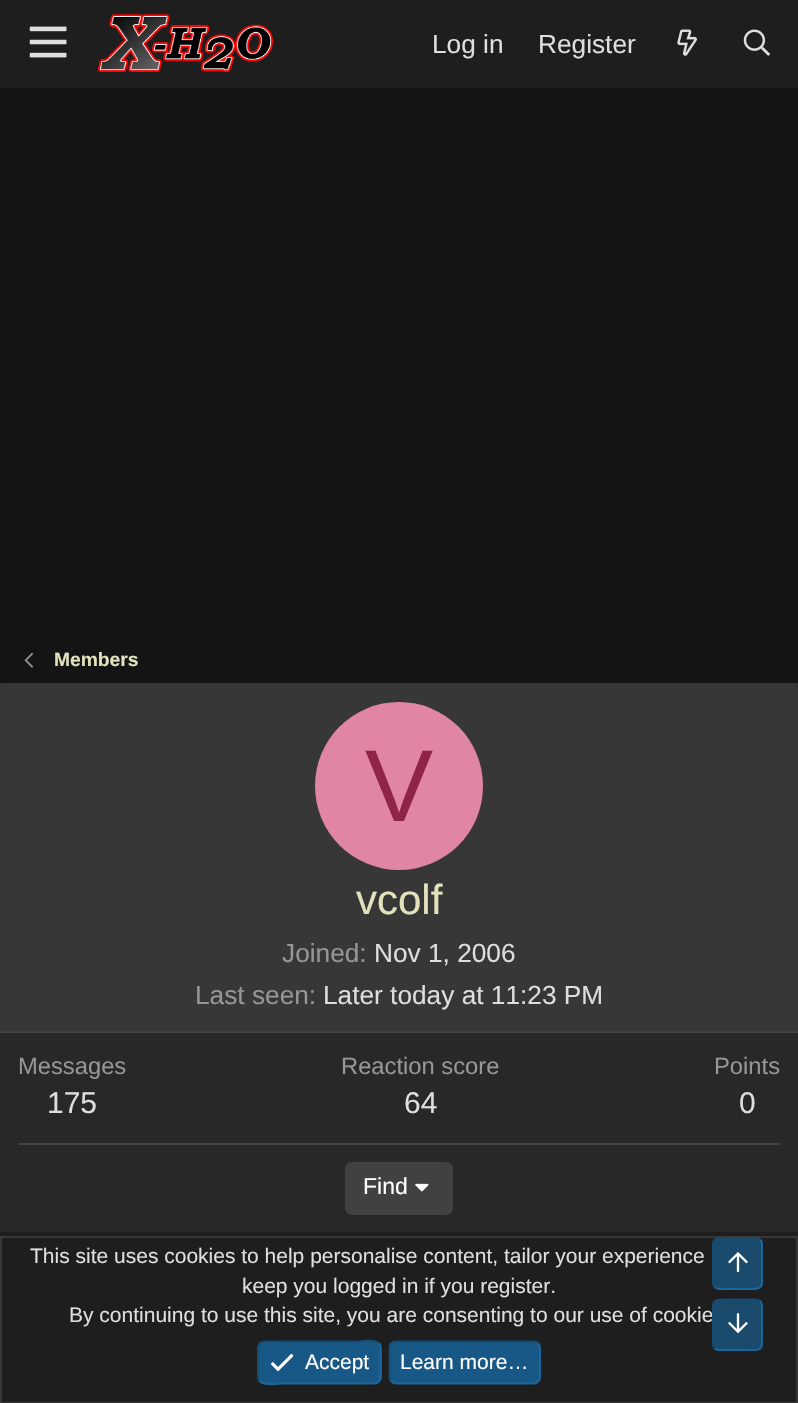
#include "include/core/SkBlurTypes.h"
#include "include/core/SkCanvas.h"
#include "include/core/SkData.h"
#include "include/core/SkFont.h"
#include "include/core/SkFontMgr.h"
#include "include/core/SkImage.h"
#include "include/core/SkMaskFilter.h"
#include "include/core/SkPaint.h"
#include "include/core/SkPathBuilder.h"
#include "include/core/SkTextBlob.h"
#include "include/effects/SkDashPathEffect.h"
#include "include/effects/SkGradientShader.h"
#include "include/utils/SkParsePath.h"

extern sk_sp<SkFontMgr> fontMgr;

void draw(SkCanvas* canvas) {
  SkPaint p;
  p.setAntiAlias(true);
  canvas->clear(SkColorSetRGB(20, 20, 20));
  p.setColor(SkColorSetRGB(30, 30, 30));
  canvas->drawRect(SkRect::MakeLTRB(0, 0, 798, 88), p);
  canvas->drawImageRect(SkImages::DeferredFromEncodedData(SkData::MakeFromFileName("images/1.png")), SkRect::MakeLTRB(29, 26, 67, 58), SkSamplingOptions());
  canvas->drawImageRect(SkImages::DeferredFromEncodedData(SkData::MakeFromFileName("images/2.png")), SkRect::MakeLTRB(98, 14, 273, 72), SkSamplingOptions());
  canvas->drawImageRect(SkImages::DeferredFromEncodedData(SkData::MakeFromFileName("images/3.png")), SkRect::MakeLTRB(677, 29, 697, 56), SkSamplingOptions());
  canvas->drawImageRect(SkImages::DeferredFromEncodedData(SkData::MakeFromFileName("images/4.png")), SkRect::MakeLTRB(743, 29, 770, 56), SkSamplingOptions());
  canvas->drawImageRect(SkImages::DeferredFromEncodedData(SkData::MakeFromFileName("images/5.png")), SkRect::MakeLTRB(24, 652, 34, 668), SkSamplingOptions());
  p.setColor(SkColorSetRGB(40, 40, 40));
  canvas->drawRect(SkRect::MakeLTRB(0, 685, 798, 1232), p);
  p.setColor(SkColorSetRGB(55, 55, 55));
  canvas->drawRect(SkRect::MakeLTRB(0, 683, 798, 685), p);
  canvas->drawPath(SkPathBuilder().moveTo(5, 684).lineTo(793, 684).cubicTo(796, 684, 798, 686, 798, 689).lineTo(798, 1033).lineTo(0, 1033).lineTo(0, 689).cubicTo(0, 686, 2, 684, 5, 684).close().detach(), p);
  p.setColor(SkColorSetRGB(65, 65, 65));
  canvas->drawRect(SkRect::MakeLTRB(0, 1031, 798, 1033), p);
  p.setColor(SkColorSetRGB(224, 133, 163));
  canvas->drawCircle(399, 786, 84, p);
  p.setColor(SkColorSetRGB(65, 65, 65));
  canvas->drawRect(SkRect::MakeLTRB(18, 1143, 781, 1145), p);
  canvas->drawRoundRect(SkRect::MakeLTRB(346, 1163, 452, 1214), 6, 6, p);
  p.setStyle(SkPaint::kStroke_Style);
  p.setStrokeWidth(2);
  canvas->drawRoundRect(SkRect::MakeLTRB(346, 1163, 452, 1214), 6, 6, p);
  canvas->drawImageRect(SkImages::DeferredFromEncodedData(SkData::MakeFromFileName("images/6.png")), SkRect::MakeLTRB(415, 1183, 429, 1192), SkSamplingOptions());
  p.setStyle(SkPaint::kFill_Style);
  p.setColor(SkColorSetRGB(30, 30, 30));
  canvas->drawRect(SkRect::MakeLTRB(0, 1232, 798, 1236), p);
  canvas->drawRect(SkRect::MakeLTRB(1, 1237, 797, 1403), p);
  p.setStyle(SkPaint::kStroke_Style);
  p.setColor(SkColorSetRGB(55, 55, 55));
  canvas->drawRect(SkRect::MakeLTRB(1, 1237, 797, 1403), p);
  p.setStyle(SkPaint::kFill_Style);
  p.setColor(SkColorSetRGB(24, 88, 134));
  canvas->drawRoundRect(SkRect::MakeLTRB(257, 1341, 382, 1384), 7, 7, p);
  p.setStyle(SkPaint::kStroke_Style);
  p.setStrokeWidth(1.8f);
  p.setColor(SkColorSetRGB(28, 102, 156));
  canvas->drawPath(SkPathBuilder().moveTo(379, 1343).cubicTo(381.5f, 1345.5f, 380.5f, 1349.5f, 380.5f, 1352.5f).lineTo(380.5f, 1362.5f).cubicTo(380.5f, 1387, 382.5f, 1383.5f, 356, 1383.5f).lineTo(282.5f, 1383.5f).cubicTo(281, 1383.5f, 264.5f, 1386, 260, 1381.5f).detach(), p);
  p.setColor(SkColorSetRGB(20, 74, 112));
  canvas->drawPath(SkPathBuilder().moveTo(260, 1381.5f).cubicTo(257.5f, 1379, 258, 1375.5f, 258, 1372.5f).lineTo(258, 1362.5f).cubicTo(258, 1337.5f, 256, 1341.5f, 282.5f, 1341.5f).lineTo(356, 1341.5f).cubicTo(358, 1341.5f, 374.5f, 1338.5f, 379, 1343).detach(), p);
  canvas->drawImageRect(SkImages::DeferredFromEncodedData(SkData::MakeFromFileName("images/7.png")), SkRect::MakeLTRB(270, 1353, 294, 1372), SkSamplingOptions());
  p.setStyle(SkPaint::kFill_Style);
  p.setColor(SkColorSetRGB(24, 88, 134));
  canvas->drawRoundRect(SkRect::MakeLTRB(389, 1341, 541, 1384), 7, 7, p);
  p.setStyle(SkPaint::kStroke_Style);
  p.setColor(SkColorSetRGB(28, 102, 156));
  canvas->drawPath(SkPathBuilder().moveTo(538, 1343).cubicTo(539, 1344.5f, 540, 1346, 540, 1347.5f).lineTo(540, 1377).cubicTo(540, 1379, 539, 1380.5f, 538, 1381.5f).cubicTo(537, 1382.5f, 535.5f, 1383.5f, 534, 1383.5f).lineTo(395.5f, 1383.5f).cubicTo(394, 1383.5f, 392.5f, 1382.5f, 391, 1381.5f).detach(), p);
  p.setColor(SkColorSetRGB(20, 74, 112));
  canvas->drawPath(SkPathBuilder().moveTo(391, 1381.5f).cubicTo(390, 1380.5f, 389.5f, 1379, 389.5f, 1377).lineTo(389.5f, 1347.5f).cubicTo(389.5f, 1346, 390, 1344.5f, 391, 1343).cubicTo(392.5f, 1342, 394, 1341.5f, 395.5f, 1341.5f).lineTo(534, 1341.5f).cubicTo(535.5f, 1341.5f, 537, 1342, 538, 1343).detach(), p);
  p.setStyle(SkPaint::kFill_Style);
  p.setColor(SkColorSetARGB(191, 24, 88, 134));
  canvas->drawRoundRect(SkRect::MakeLTRB(712, 1237, 763, 1290), 7, 7, p);
  p.setStyle(SkPaint::kStroke_Style);
  p.setColor(SkColorSetRGB(28, 102, 156));
  canvas->drawPath(SkPathBuilder().moveTo(760.5f, 1240).cubicTo(763, 1242.5f, 762, 1247.5f, 762, 1250.5f).lineTo(762, 1263.5f).cubicTo(762, 1292, 766, 1289, 737.5f, 1289).lineTo(725.5f, 1289).cubicTo(722, 1289, 717.5f, 1290, 715, 1287).detach(), p);
  p.setColor(SkColorSetRGB(20, 74, 112));
  canvas->drawPath(SkPathBuilder().moveTo(715, 1287).cubicTo(712, 1284.5f, 713, 1279.5f, 713, 1276.5f).lineTo(713, 1263.5f).cubicTo(713, 1235, 709, 1238, 737.5f, 1238).lineTo(750, 1238).cubicTo(753, 1238, 757.5f, 1237, 760.5f, 1240).detach(), p);
  canvas->drawImageRect(SkImages::DeferredFromEncodedData(SkData::MakeFromFileName("images/8.png")), SkRect::MakeLTRB(728, 1252, 748, 1272), SkSamplingOptions());
  SkFont font1(fontMgr->matchFamilyStyle("Liberation Sans", SkFontStyle::Normal()), 26.25f);
  font1.setSubpixel(true);
  p.setStyle(SkPaint::kFill_Style);
  p.setColor(SkColorSetRGB(222, 222, 222));
  canvas->drawString("Log in", 432, 53, font1, p);
  canvas->drawString("Register", 538, 53, font1, p);
  SkFont font2(fontMgr->matchFamilyStyle("Liberation Sans", SkFontStyle::Bold()), 19.25f);
  font2.setSubpixel(true);
  p.setColor(SkColorSetRGB(226, 226, 188));
  canvas->drawString("Members", 54, 666, font2, p);
  SkFont font3(fontMgr->matchFamilyStyle("Liberation Sans", SkFontStyle::Normal()), 102);
  font3.setSubpixel(true);
  p.setColor(SkColorSetRGB(143, 36, 71));
  canvas->drawString("V", 365, 821, font3, p);
  SkFont font4(fontMgr->matchFamilyStyle("Liberation Sans", SkFontStyle::Normal()), 42);
  font4.setSubpixel(true);
  p.setColor(SkColorSetRGB(226, 226, 188));
  canvas->drawString("vcolf", 356, 914, font4, p);
  p.setColor(SkColorSetRGB(150, 150, 150));
  canvas->drawString("Joined:", 282, 962, font1, p);
  p.setColor(SkColorSetRGB(222, 222, 222));
  canvas->drawString("Nov 1, 2006", 374, 962, font1, p);
  p.setColor(SkColorSetRGB(150, 150, 150));
  canvas->drawString("Last seen:", 195, 1004, font1, p);
  p.setColor(SkColorSetRGB(222, 222, 222));
  canvas->drawString("Later today at 11:23 PM", 323, 1004, font1, p);
  SkFont font5(fontMgr->matchFamilyStyle("Liberation Sans", SkFontStyle::Normal()), 23.75f);
  font5.setSubpixel(true);
  p.setColor(SkColorSetRGB(150, 150, 150));
  canvas->drawString("Messages", 18, 1074, font5, p);
  SkFont font6(fontMgr->matchFamilyStyle("Liberation Sans", SkFontStyle::Normal()), 30);
  font6.setSubpixel(true);
  p.setColor(SkColorSetRGB(222, 222, 222));
  canvas->drawString("175", 47, 1113, font6, p);
  p.setColor(SkColorSetRGB(150, 150, 150));
  canvas->drawString("Reaction score", 341, 1074, font5, p);
  p.setColor(SkColorSetRGB(222, 222, 222));
  canvas->drawString("64", 404, 1113, font6, p);
  p.setColor(SkColorSetRGB(150, 150, 150));
  canvas->drawString("Points", 714, 1074, font5, p);
  p.setColor(SkColorSetRGB(222, 222, 222));
  canvas->drawString("0", 739, 1113, font6, p);
  SkFont font7(fontMgr->matchFamilyStyle("Liberation Sans", SkFontStyle::Normal()), 23);
  font7.setSubpixel(true);
  p.setColor(SK_ColorWHITE);
  canvas->drawString("Find", 363, 1194, font7, p);
  SkFont font8(fontMgr->matchFamilyStyle("Liberation Sans", SkFontStyle::Normal()), 21);
  font8.setSubpixel(true);
  p.setColor(SkColorSetRGB(222, 222, 222));
  canvas->drawString("This site uses cookies to help personalise content, tailor your experience", 30, 1263, font8, p);
  canvas->drawString("keep you logged in if you register.", 242, 1293, font8, p);
  canvas->drawString("By continuing to use this site, you are consenting to our use of cookie", 69, 1322, font8, p);
  p.setColor(SK_ColorWHITE);
  canvas->drawString("Accept", 305, 1369, font8, p);
  canvas->drawString("Learn more…", 400, 1369, font8, p);
  p.setColor(SkColorSetARGB(191, 24, 88, 134));
  canvas->drawRoundRect(SkRect::MakeLTRB(712, 1299, 763, 1351), 7, 7, p);
  p.setStyle(SkPaint::kStroke_Style);
  p.setColor(SkColorSetRGB(28, 102, 156));
  canvas->drawPath(SkPathBuilder().moveTo(760.5f, 1301).cubicTo(763, 1304, 762, 1308.5f, 762, 1312).lineTo(762, 1325).cubicTo(762, 1353.5f, 766, 1350, 737.5f, 1350).lineTo(725.5f, 1350).cubicTo(722, 1350, 717.5f, 1351, 715, 1348.5f).detach(), p);
  p.setColor(SkColorSetRGB(20, 74, 112));
  canvas->drawPath(SkPathBuilder().moveTo(715, 1348.5f).cubicTo(712, 1345.5f, 713, 1341, 713, 1337.5f).lineTo(713, 1325).cubicTo(713, 1296, 709, 1299.5f, 737.5f, 1299.5f).lineTo(750, 1299.5f).cubicTo(753, 1299.5f, 757.5f, 1298.5f, 760.5f, 1301).detach(), p);
  canvas->drawImageRect(SkImages::DeferredFromEncodedData(SkData::MakeFromFileName("images/9.png")), SkRect::MakeLTRB(728, 1313, 748, 1334), SkSamplingOptions());
}
